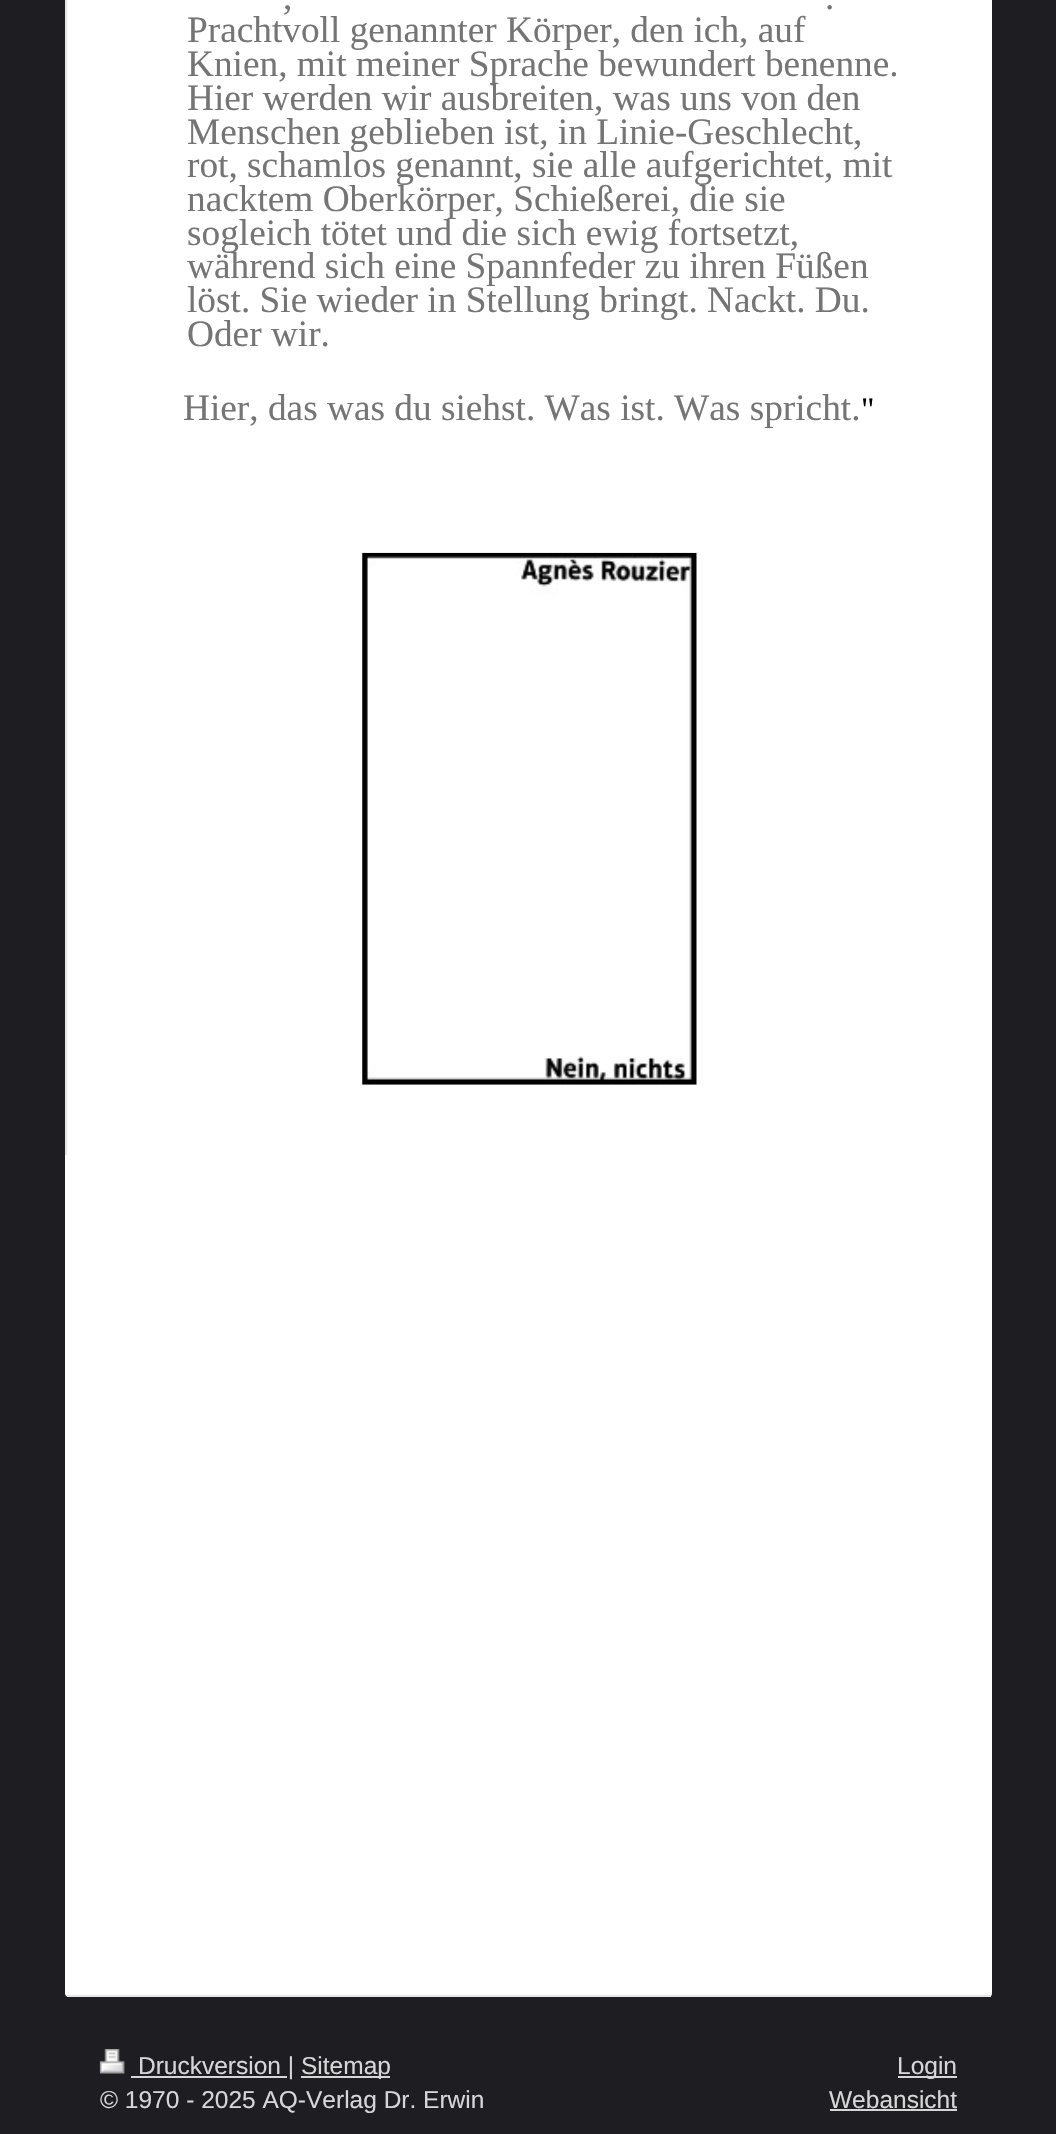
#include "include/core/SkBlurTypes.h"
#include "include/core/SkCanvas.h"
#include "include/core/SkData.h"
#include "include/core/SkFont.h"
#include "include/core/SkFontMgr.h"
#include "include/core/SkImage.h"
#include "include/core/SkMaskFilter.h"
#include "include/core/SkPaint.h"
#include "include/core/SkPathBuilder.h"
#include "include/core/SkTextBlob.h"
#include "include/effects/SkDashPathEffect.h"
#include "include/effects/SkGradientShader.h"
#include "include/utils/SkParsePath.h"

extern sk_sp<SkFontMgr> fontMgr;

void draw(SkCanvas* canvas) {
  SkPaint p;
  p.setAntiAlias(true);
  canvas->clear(SkColorSetRGB(30, 30, 34));
  p.setColor(SK_ColorWHITE);
  canvas->drawRoundRect(SkRect::MakeLTRB(65, -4, 992, 1997), 4, 4, p);
  p.setColor(SkColorSetRGB(230, 230, 230));
  canvas->drawRect(SkRect::MakeLTRB(67, 1995, 991, 1997), p);
  canvas->drawRect(SkRect::MakeLTRB(65, 0, 67, 1155), p);
  canvas->drawImageRect(SkImages::DeferredFromEncodedData(SkData::MakeFromFileName("images/1.png")), SkRect::MakeLTRB(362, 552, 697, 1085), SkSamplingOptions());
  canvas->drawImageRect(SkImages::DeferredFromEncodedData(SkData::MakeFromFileName("images/2.png")), SkRect::MakeLTRB(99, 2049, 125, 2074), SkSamplingOptions());
  p.setColor(SkColorSetRGB(214, 214, 217));
  canvas->drawRect(SkRect::MakeLTRB(131, 2076, 287, 2078), p);
  canvas->drawRect(SkRect::MakeLTRB(301, 2076, 390, 2078), p);
  canvas->drawRect(SkRect::MakeLTRB(898, 2076, 957, 2078), p);
  canvas->drawRect(SkRect::MakeLTRB(830, 2109, 957, 2111), p);
  SkFont font1(fontMgr->matchFamilyStyle("Liberation Serif", SkFontStyle::Normal()), 37.3f);
  font1.setSubpixel(true);
  p.setColor(SkColorSetRGB(117, 117, 117));
  canvas->drawString(",", 283, 9, font1, p);
  canvas->drawString(".", 825, 9, font1, p);
  canvas->drawString("Prachtvoll genannter Körper, den ich, auf", 187, 42, font1, p);
  canvas->drawString("Knien, mit meiner Sprache bewundert benenne.", 187, 76, font1, p);
  canvas->drawString("Hier werden wir ausbreiten, was uns von den", 187, 110, font1, p);
  canvas->drawString("Menschen geblieben ist, in Linie-Geschlecht,", 187, 144, font1, p);
  canvas->drawString("rot, schamlos genannt, sie alle aufgerichtet, mit", 187, 177, font1, p);
  canvas->drawString("nacktem Oberkörper, Schießerei, die sie", 187, 211, font1, p);
  canvas->drawString("sogleich tötet und die sich ewig fortsetzt,", 187, 245, font1, p);
  canvas->drawString("während sich eine Spannfeder zu ihren Füßen", 187, 278, font1, p);
  canvas->drawString("löst. Sie wieder in Stellung bringt. Nackt. Du.", 187, 312, font1, p);
  canvas->drawString("Oder wir.", 187, 346, font1, p);
  canvas->drawString("Hier, das was du siehst. Was ist. Was spricht.", 183, 420, font1, p);
  SkFont font2(fontMgr->matchFamilyStyle("Liberation Serif", SkFontStyle::Normal()), 33);
  font2.setSubpixel(true);
  p.setColor(SK_ColorBLACK);
  canvas->drawString("\"", 861, 420, font2, p);
  SkFont font3(fontMgr->matchFamilyStyle("Liberation Sans", SkFontStyle::Normal()), 24.5f);
  font3.setSubpixel(true);
  p.setColor(SkColorSetRGB(214, 214, 217));
  canvas->drawString("Druckversion |", 138, 2074, font3, p);
  canvas->drawString("Sitemap", 301, 2074, font3, p);
  canvas->drawString("© 1970 - 2025 AQ-Verlag Dr. Erwin", 100, 2108, font3, p);
  canvas->drawString("Login", 897, 2074, font3, p);
  canvas->drawString("Webansicht", 829, 2108, font3, p);
}
